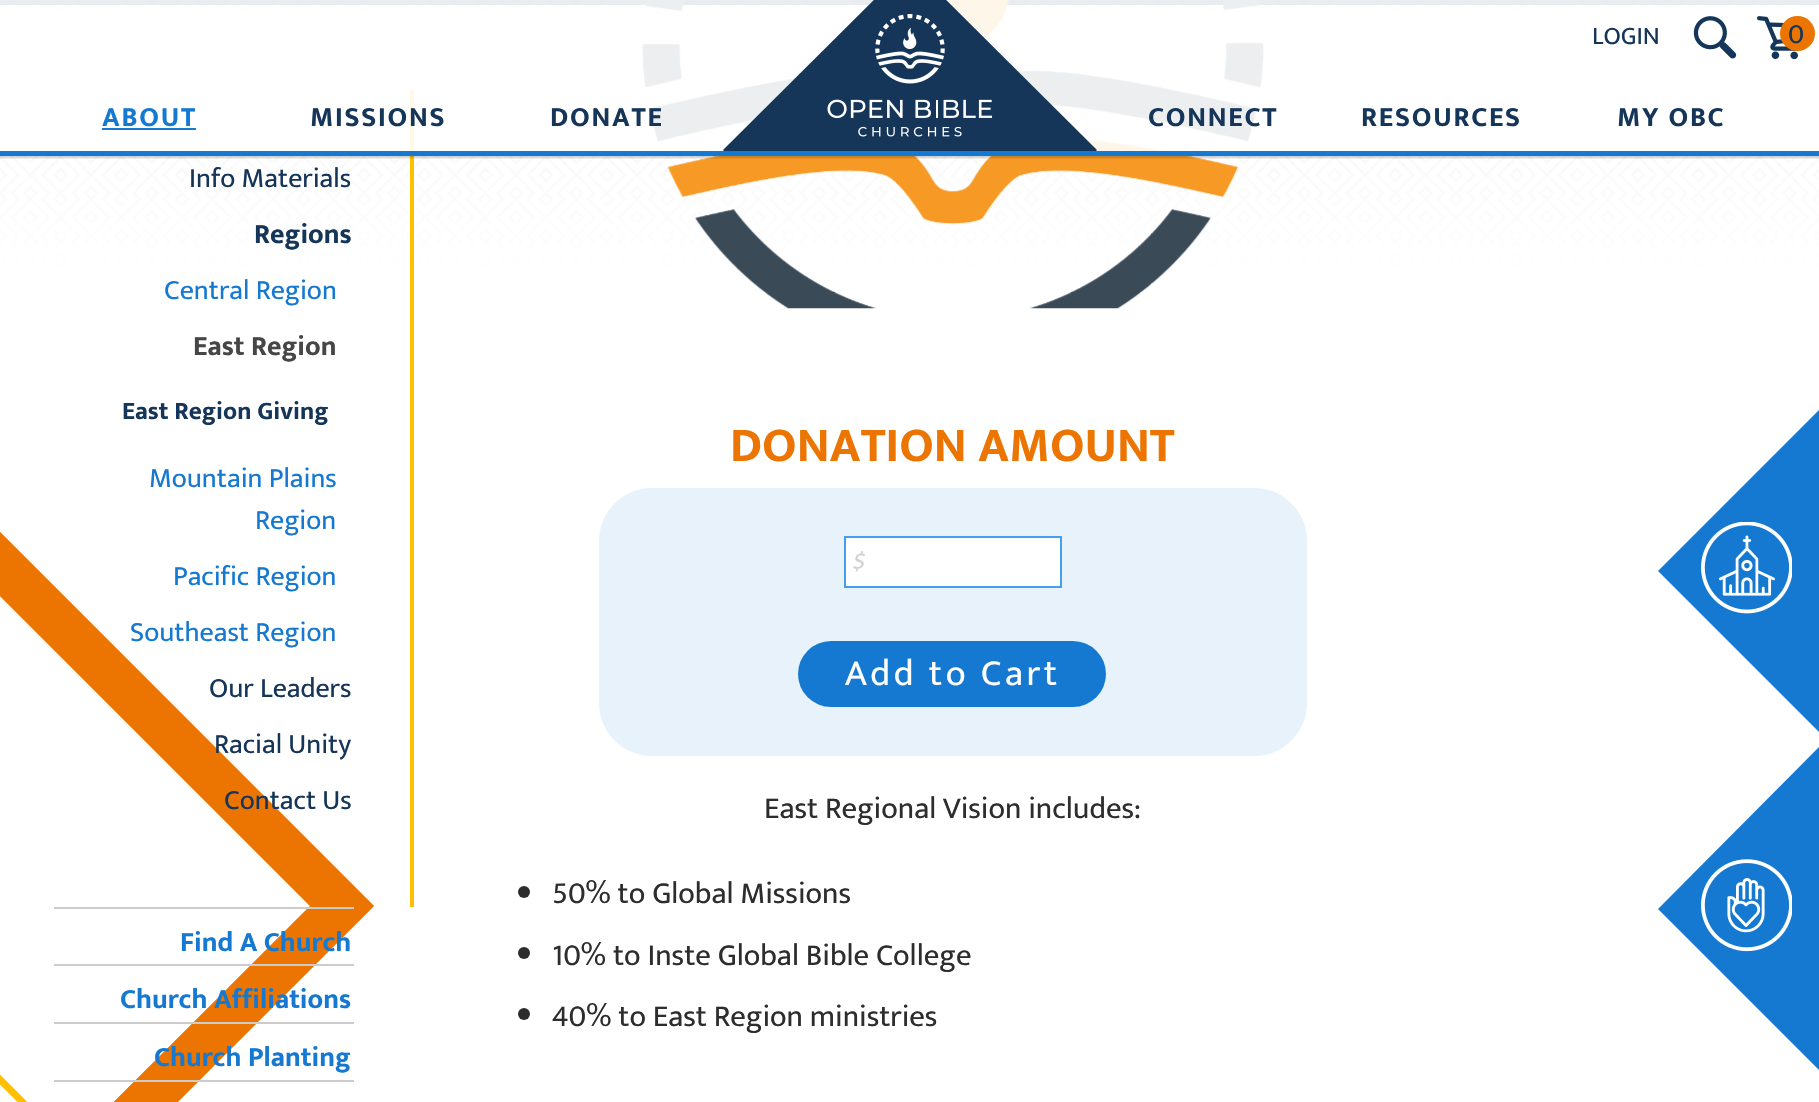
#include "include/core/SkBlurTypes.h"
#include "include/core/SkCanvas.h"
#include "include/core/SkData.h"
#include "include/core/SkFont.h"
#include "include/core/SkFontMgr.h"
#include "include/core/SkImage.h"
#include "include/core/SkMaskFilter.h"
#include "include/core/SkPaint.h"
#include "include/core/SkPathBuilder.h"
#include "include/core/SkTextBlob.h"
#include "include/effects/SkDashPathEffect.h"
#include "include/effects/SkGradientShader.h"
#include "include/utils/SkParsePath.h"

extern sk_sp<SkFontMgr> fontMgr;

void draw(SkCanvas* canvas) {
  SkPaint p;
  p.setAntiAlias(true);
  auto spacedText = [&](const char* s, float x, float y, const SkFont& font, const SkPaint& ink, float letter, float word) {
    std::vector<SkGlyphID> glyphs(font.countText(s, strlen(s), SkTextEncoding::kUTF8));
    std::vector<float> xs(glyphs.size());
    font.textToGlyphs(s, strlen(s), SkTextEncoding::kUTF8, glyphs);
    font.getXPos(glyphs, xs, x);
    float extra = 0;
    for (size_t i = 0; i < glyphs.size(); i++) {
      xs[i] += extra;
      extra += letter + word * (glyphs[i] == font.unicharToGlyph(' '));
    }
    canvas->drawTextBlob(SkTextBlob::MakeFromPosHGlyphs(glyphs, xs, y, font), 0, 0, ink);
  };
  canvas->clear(SK_ColorWHITE);
  p.setColor(SkColorSetRGB(233, 233, 233));
  canvas->drawRect(SkRect::MakeLTRB(0, 0, 1819, 5), p);
  canvas->drawImageRect(SkImages::DeferredFromEncodedData(SkData::MakeFromFileName("images/4.png")), SkRect::MakeLTRB(2, 0, 1819, 6), SkSamplingOptions());
  p.setColor(SkColorSetARGB(247, 21, 53, 89));
  canvas->drawRect(SkRect::MakeLTRB(0, 0, 1819, 5), p);
  canvas->drawImageRect(SkImages::DeferredFromEncodedData(SkData::MakeFromFileName("images/5.png")), SkRect::MakeLTRB(0, 5, 1819, 267), SkSamplingOptions());
  {
    const SkColor colors[] = {SkColorSetARGB(242, 255, 255, 255), SK_ColorWHITE, SK_ColorWHITE, SkColorSetARGB(242, 255, 255, 255)};
    const float stops[] = {0, 0.2f, 0.8f, 1};
    const SkPoint ends[] = {{910, 5.2f}, {910, 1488}};
    p.setShader(SkGradientShader::MakeLinear(ends, colors, stops, 4, SkTileMode::kClamp));
    p.setAlpha(255);
  }
  canvas->drawRect(SkRect::MakeLTRB(0, 5, 1819, 267), p);
  p.setShader(nullptr);
  p.setColor(SkColorSetRGB(255, 192, 0));
  canvas->drawRect(SkRect::MakeLTRB(410, 89, 414, 907), p);
  canvas->drawImageRect(SkImages::DeferredFromEncodedData(SkData::MakeFromFileName("images/6.png")), SkRect::MakeLTRB(642, 0, 1265, 309), SkSamplingOptions());
  canvas->save();
  canvas->clipRect(SkRect::MakeLTRB(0, 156, 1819, 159));
  p.setColor(SkColorSetARGB(51, 0, 0, 0));
  p.setMaskFilter(SkMaskFilter::MakeBlur(kNormal_SkBlurStyle, 1));
  canvas->drawRect(SkRect::MakeLTRB(-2, -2, 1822, 158), p);
  p.setMaskFilter(nullptr);
  canvas->restore();
  p.setColor(SkColorSetARGB(230, 255, 255, 255));
  canvas->drawRect(SkRect::MakeLTRB(0, 0, 1819, 151), p);
  canvas->drawImageRect(SkImages::DeferredFromEncodedData(SkData::MakeFromFileName("images/1.png")), SkRect::MakeLTRB(1693, 16, 1737, 59), SkSamplingOptions());
  canvas->drawImageRect(SkImages::DeferredFromEncodedData(SkData::MakeFromFileName("images/2.png")), SkRect::MakeLTRB(1757, 16, 1799, 60), SkSamplingOptions());
  p.setColor(SkColorSetRGB(235, 117, 0));
  canvas->drawCircle(1797.5f, 33.5f, 17.5f, p);
  p.setColor(SkColorSetRGB(21, 121, 209));
  canvas->drawRect(SkRect::MakeLTRB(0, 151, 1819, 156), p);
  canvas->drawRect(SkRect::MakeLTRB(102, 128, 196, 130), p);
  canvas->save();
  canvas->clipRect(SkRect::MakeLTRB(721, 0, 1099, 151));
  p.setColor(SkColorSetRGB(21, 53, 89));
  canvas->drawPath(SkPathBuilder().moveTo(910, -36).lineTo(1097, 150).lineTo(910, 337).lineTo(723, 150).close().detach(), p);
  canvas->restore();
  canvas->drawImageRect(SkImages::DeferredFromEncodedData(SkData::MakeFromFileName("images/3.png")), SkRect::MakeLTRB(827, 14, 993, 137), SkSamplingOptions());
  p.setStyle(SkPaint::kStroke_Style);
  p.setStrokeWidth(45.5f);
  p.setColor(SkColorSetRGB(235, 117, 0));
  canvas->drawPath(SkPathBuilder().moveTo(-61.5f, 502.5f).lineTo(342, 906).lineTo(-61.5f, 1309).lineTo(-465, 906).close().detach(), p);
  p.setStyle(SkPaint::kFill_Style);
  p.setColor(SkColorSetRGB(204, 204, 204));
  canvas->drawRect(SkRect::MakeLTRB(54, 907, 354, 909), p);
  canvas->drawRect(SkRect::MakeLTRB(54, 964, 354, 966), p);
  canvas->drawRect(SkRect::MakeLTRB(54, 1022, 354, 1024), p);
  canvas->drawRect(SkRect::MakeLTRB(54, 1080, 354, 1082), p);
  p.setColor(SkColorSetRGB(232, 242, 251));
  canvas->drawRoundRect(SkRect::MakeLTRB(599, 488, 1307, 756), 53, 53, p);
  p.setColor(SK_ColorWHITE);
  canvas->drawRect(SkRect::MakeLTRB(845, 537, 1061, 587), p);
  p.setStyle(SkPaint::kStroke_Style);
  p.setStrokeWidth(2);
  p.setColor(SkColorSetRGB(70, 159, 236));
  canvas->drawRect(SkRect::MakeLTRB(845, 537, 1061, 587), p);
  p.setStyle(SkPaint::kFill_Style);
  p.setColor(SkColorSetRGB(21, 121, 209));
  canvas->drawRoundRect(SkRect::MakeLTRB(798, 641, 1106, 707), 33, 33, p);
  p.setColor(SkColorSetRGB(45, 45, 45));
  canvas->drawCircle(524, 892, 6, p);
  canvas->drawCircle(524, 953, 6, p);
  canvas->drawCircle(524, 1014, 6, p);
  p.setStyle(SkPaint::kStroke_Style);
  p.setStrokeWidth(7);
  p.setColor(SkColorSetRGB(255, 192, 0));
  canvas->drawPath(SkPathBuilder().moveTo(-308, 771.5f).lineTo(122.5f, 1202).lineTo(-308, 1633).lineTo(-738.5f, 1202).close().detach(), p);
  p.setStyle(SkPaint::kFill_Style);
  p.setColor(SkColorSetRGB(21, 121, 209));
  canvas->drawPath(SkPathBuilder().moveTo(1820, 409).lineTo(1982, 571).lineTo(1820, 733).lineTo(1658, 571).close().detach(), p);
  canvas->drawImageRect(SkImages::DeferredFromEncodedData(SkData::MakeFromFileName("images/7.png")), SkRect::MakeLTRB(1701, 522, 1792, 614), SkSamplingOptions());
  canvas->drawPath(SkPathBuilder().moveTo(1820, 746).lineTo(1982, 909).lineTo(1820, 1071).lineTo(1658, 909).close().detach(), p);
  canvas->drawImageRect(SkImages::DeferredFromEncodedData(SkData::MakeFromFileName("images/8.png")), SkRect::MakeLTRB(1701, 859, 1792, 952), SkSamplingOptions());
  SkFont font1(fontMgr->matchFamilyStyle("Mukta Vaani", SkFontStyle::Normal()), 25.25f);
  font1.setSubpixel(true);
  p.setColor(SkColorSetRGB(21, 53, 89));
  canvas->drawString("LOGIN", 1592, 44, font1, p);
  SkFont font2(fontMgr->matchFamilyStyle("Mukta Vaani", SkFontStyle::Normal()), 28);
  font2.setSubpixel(true);
  canvas->drawString("0", 1788, 43, font2, p);
  SkFont font3(fontMgr->matchFamilyStyle("Mukta Vaani", SkFontStyle::Bold()), 28);
  font3.setSubpixel(true);
  p.setColor(SkColorSetRGB(21, 121, 209));
  spacedText("ABOUT", 102, 126, font3, p, 1.75f, 0);
  p.setColor(SkColorSetRGB(21, 53, 89));
  spacedText("MISSIONS", 310, 126, font3, p, 1.75f, 0);
  spacedText("DONATE", 550, 126, font3, p, 1.75f, 0);
  spacedText("CONNECT", 1148, 126, font3, p, 1.75f, 0);
  spacedText("RESOURCES", 1361, 126, font3, p, 1.75f, 0);
  spacedText("MY OBC", 1617, 126, font3, p, 1.75f, 0);
  canvas->drawString("Info Materials", 189, 187, font2, p);
  canvas->drawString("Regions", 254, 243, font3, p);
  p.setColor(SkColorSetRGB(21, 121, 209));
  canvas->drawString("Central Region", 164, 299, font2, p);
  p.setColor(SkColorSetRGB(70, 70, 70));
  canvas->drawString("East Region", 193, 355, font3, p);
  SkFont font4(fontMgr->matchFamilyStyle("Mukta Vaani", SkFontStyle::Bold()), 25.25f);
  font4.setSubpixel(true);
  p.setColor(SkColorSetRGB(21, 53, 89));
  canvas->drawString("East Region Giving", 122, 419, font4, p);
  p.setColor(SkColorSetRGB(21, 121, 209));
  canvas->drawString("Mountain Plains", 149, 487, font2, p);
  canvas->drawString("Region", 255, 529, font2, p);
  canvas->drawString("Pacific Region", 173, 585, font2, p);
  canvas->drawString("Southeast Region", 130, 641, font2, p);
  p.setColor(SkColorSetRGB(21, 53, 89));
  canvas->drawString("Our Leaders", 209, 697, font2, p);
  canvas->drawString("Racial Unity", 214, 753, font2, p);
  canvas->drawString("Contact Us", 224, 809, font2, p);
  p.setColor(SkColorSetRGB(21, 121, 209));
  canvas->drawString("Find A Church", 180, 951, font3, p);
  canvas->drawString("Church Affiliations", 120, 1008, font3, p);
  canvas->drawString("Church Planting", 154, 1066, font3, p);
  SkFont font5(fontMgr->matchFamilyStyle("Mukta Vaani", SkFontStyle::Bold()), 49.1f);
  font5.setSubpixel(true);
  p.setColor(SkColorSetRGB(235, 117, 0));
  canvas->drawString("DONATION AMOUNT", 730, 461, font5, p);
  SkFont font6(fontMgr->matchFamilyStyle("Mukta Vaani", SkFontStyle::Italic()), 25);
  font6.setSubpixel(true);
  p.setColor(SkColorSetRGB(211, 211, 211));
  canvas->drawString("$", 851, 569, font6, p);
  SkFont font7(fontMgr->matchFamilyStyle("Mukta Vaani", SkFontStyle::Normal()), 37);
  font7.setSubpixel(true);
  p.setColor(SK_ColorWHITE);
  spacedText("Add to Cart", 845, 685, font7, p, 3.5f, 0);
  SkFont font8(fontMgr->matchFamilyStyle("Mukta Vaani", SkFontStyle::Normal()), 30.75f);
  font8.setSubpixel(true);
  p.setColor(SkColorSetRGB(45, 45, 45));
  canvas->drawString("East Regional Vision includes:", 764, 818, font8, p);
  canvas->drawString("50% to Global Missions", 552, 903, font8, p);
  canvas->drawString("10% to Inste Global Bible College", 552, 965, font8, p);
  canvas->drawString("40% to East Region ministries", 552, 1026, font8, p);
}
